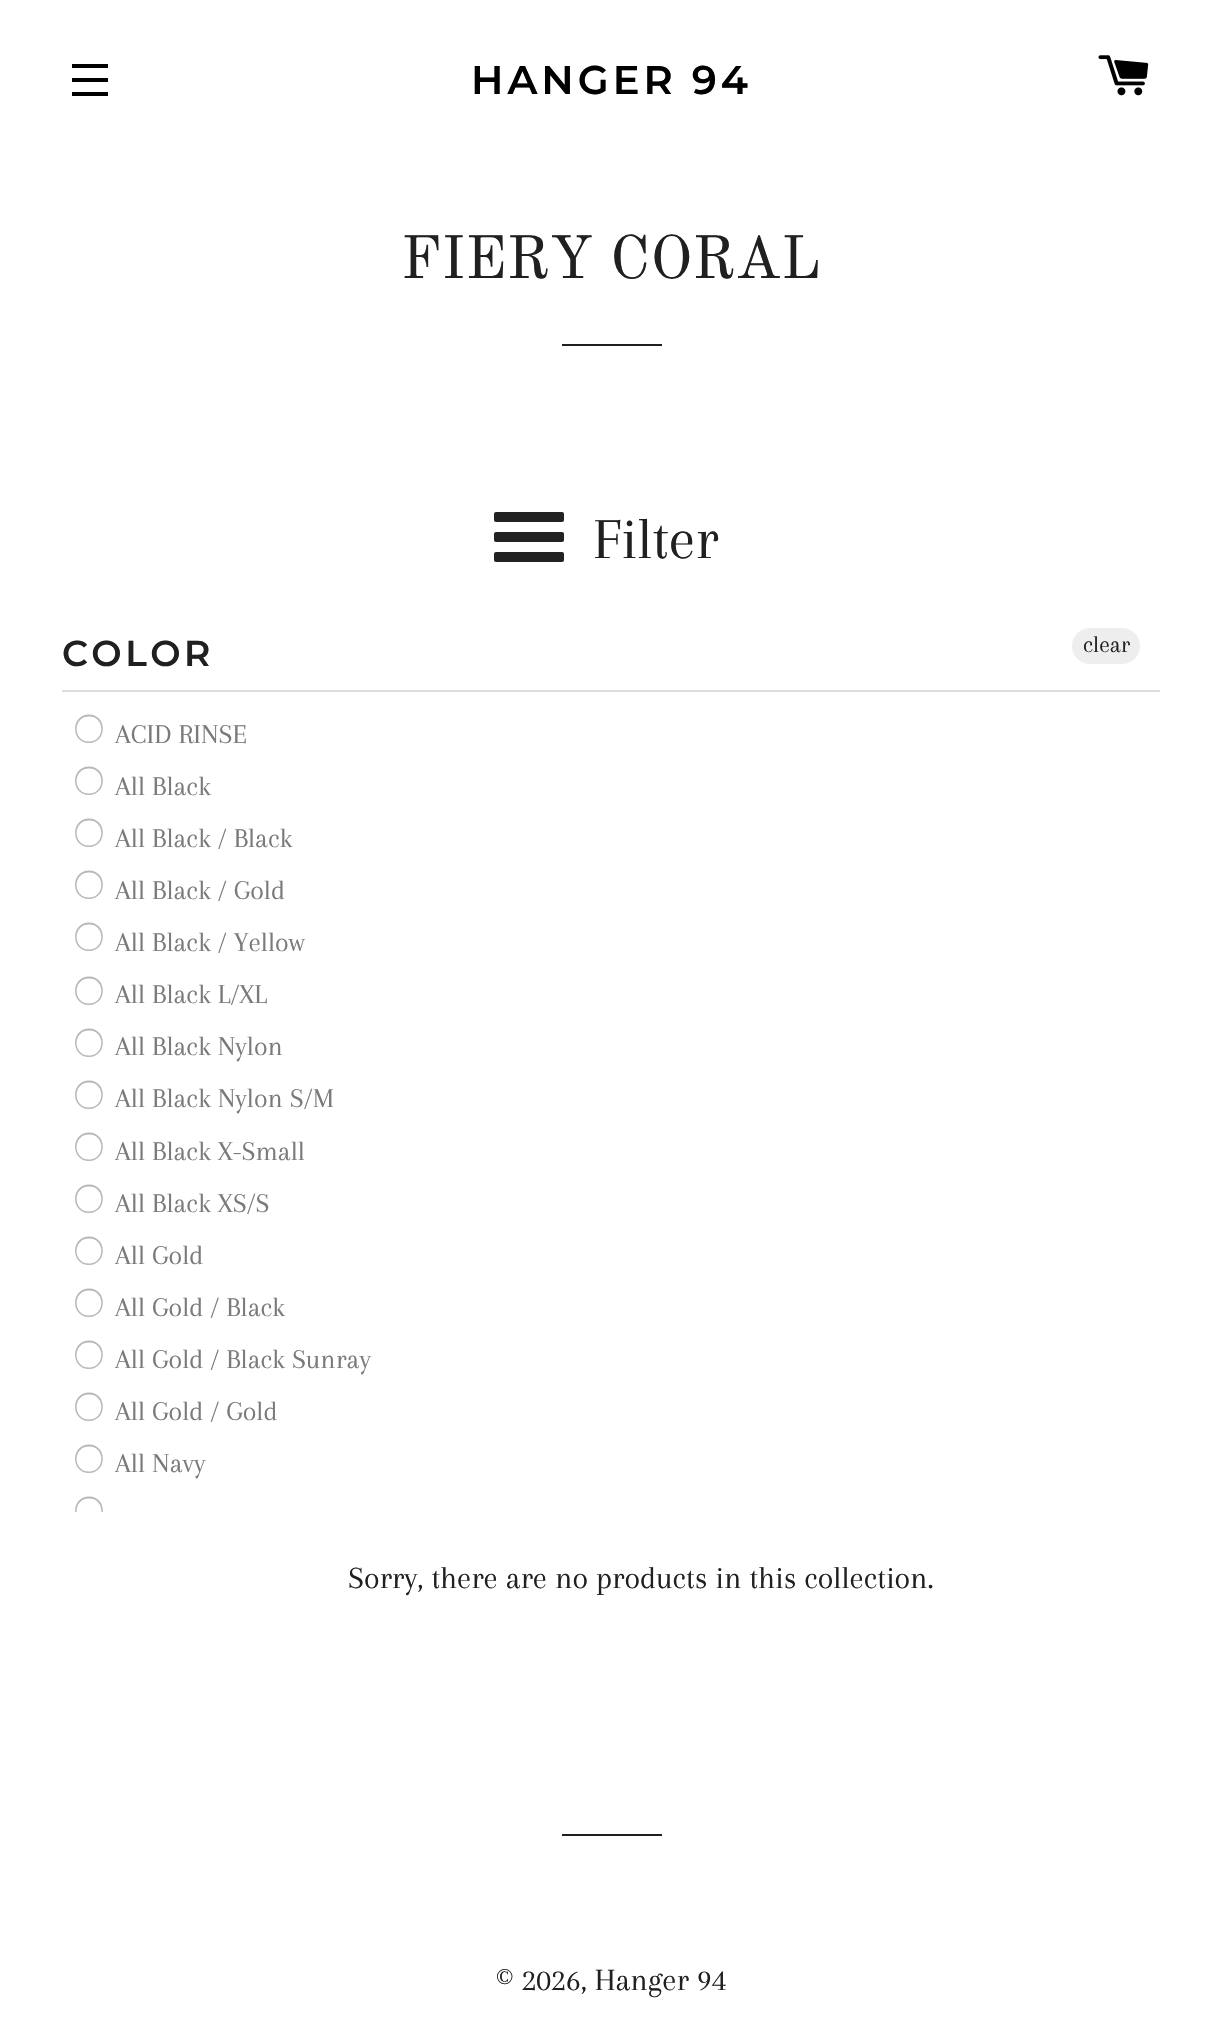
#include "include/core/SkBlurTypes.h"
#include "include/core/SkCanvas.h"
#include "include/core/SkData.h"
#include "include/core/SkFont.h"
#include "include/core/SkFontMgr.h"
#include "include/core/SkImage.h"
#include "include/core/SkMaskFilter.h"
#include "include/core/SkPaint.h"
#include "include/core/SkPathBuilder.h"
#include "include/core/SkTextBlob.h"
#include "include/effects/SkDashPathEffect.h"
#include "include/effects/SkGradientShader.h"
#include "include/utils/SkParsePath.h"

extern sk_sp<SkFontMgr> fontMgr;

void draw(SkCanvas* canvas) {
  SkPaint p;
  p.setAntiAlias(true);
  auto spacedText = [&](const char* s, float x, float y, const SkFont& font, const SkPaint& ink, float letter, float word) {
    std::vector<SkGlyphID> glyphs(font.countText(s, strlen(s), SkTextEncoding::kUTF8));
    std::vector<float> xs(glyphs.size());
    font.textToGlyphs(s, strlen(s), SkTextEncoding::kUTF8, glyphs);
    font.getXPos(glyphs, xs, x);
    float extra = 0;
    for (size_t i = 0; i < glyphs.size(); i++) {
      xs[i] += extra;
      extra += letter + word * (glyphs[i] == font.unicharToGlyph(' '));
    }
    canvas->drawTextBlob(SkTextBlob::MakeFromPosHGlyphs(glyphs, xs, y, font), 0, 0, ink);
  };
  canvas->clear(SK_ColorWHITE);
  p.setColor(SK_ColorBLACK);
  canvas->drawRect(SkRect::MakeLTRB(72, 64, 108, 68), p);
  canvas->drawRect(SkRect::MakeLTRB(72, 78, 108, 82), p);
  canvas->drawRect(SkRect::MakeLTRB(72, 92, 108, 96), p);
  canvas->drawImageRect(SkImages::DeferredFromEncodedData(SkData::MakeFromFileName("images/1.png")), SkRect::MakeLTRB(1098, 55, 1149, 96), SkSamplingOptions());
  p.setColor(SkColorSetRGB(31, 32, 33));
  canvas->drawRect(SkRect::MakeLTRB(562, 344, 662, 346), p);
  p.setColor(SkColorSetRGB(34, 34, 34));
  canvas->drawRoundRect(SkRect::MakeLTRB(494, 532, 564, 542), 2, 2, p);
  canvas->drawRoundRect(SkRect::MakeLTRB(494, 512, 564, 522), 2, 2, p);
  canvas->drawRoundRect(SkRect::MakeLTRB(494, 552, 564, 562), 2, 2, p);
  p.setColor(SkColorSetRGB(221, 221, 221));
  canvas->drawRect(SkRect::MakeLTRB(62, 690, 1160, 692), p);
  p.setColor(SkColorSetRGB(238, 238, 238));
  canvas->drawRoundRect(SkRect::MakeLTRB(1072, 628, 1140, 664), 18, 18, p);
  p.setColor(SkColorSetRGB(184, 184, 184));
  canvas->drawPath(SkPathBuilder().moveTo(89, 743).cubicTo(70.5f, 743, 70.5f, 714.5f, 89, 714.5f).cubicTo(107.5f, 714.5f, 107.5f, 743, 89, 743).close().moveTo(89, 741.5f).cubicTo(105.5f, 741.5f, 105.5f, 716.5f, 89, 716.5f).cubicTo(72.5f, 716.5f, 72.5f, 741.5f, 89, 741.5f).close().detach(), p);
  canvas->drawPath(SkPathBuilder().moveTo(89, 795).cubicTo(70.5f, 795, 70.5f, 766.5f, 89, 766.5f).cubicTo(107.5f, 766.5f, 107.5f, 795, 89, 795).close().moveTo(89, 793.5f).cubicTo(105.5f, 793.5f, 105.5f, 768.5f, 89, 768.5f).cubicTo(72.5f, 768.5f, 72.5f, 793.5f, 89, 793.5f).close().detach(), p);
  canvas->drawPath(SkPathBuilder().moveTo(89, 847).cubicTo(70.5f, 847, 70.5f, 818.5f, 89, 818.5f).cubicTo(107.5f, 818.5f, 107.5f, 847, 89, 847).close().moveTo(89, 845.5f).cubicTo(105.5f, 845.5f, 105.5f, 820.5f, 89, 820.5f).cubicTo(72.5f, 820.5f, 72.5f, 845.5f, 89, 845.5f).close().detach(), p);
  canvas->drawPath(SkPathBuilder().moveTo(89, 899).cubicTo(70.5f, 899, 70.5f, 870.5f, 89, 870.5f).cubicTo(107.5f, 870.5f, 107.5f, 899, 89, 899).close().moveTo(89, 897.5f).cubicTo(105.5f, 897.5f, 105.5f, 872.5f, 89, 872.5f).cubicTo(72.5f, 872.5f, 72.5f, 897.5f, 89, 897.5f).close().detach(), p);
  canvas->drawPath(SkPathBuilder().moveTo(89, 951).cubicTo(70.5f, 951, 70.5f, 922.5f, 89, 922.5f).cubicTo(107.5f, 922.5f, 107.5f, 951, 89, 951).close().moveTo(89, 949.5f).cubicTo(105.5f, 949.5f, 105.5f, 924.5f, 89, 924.5f).cubicTo(72.5f, 924.5f, 72.5f, 949.5f, 89, 949.5f).close().detach(), p);
  canvas->drawPath(SkPathBuilder().moveTo(89, 1005).cubicTo(70.5f, 1005, 70.5f, 976.5f, 89, 976.5f).cubicTo(107.5f, 976.5f, 107.5f, 1005, 89, 1005).close().moveTo(89, 1003.5f).cubicTo(105.5f, 1003.5f, 105.5f, 978.5f, 89, 978.5f).cubicTo(72.5f, 978.5f, 72.5f, 1003.5f, 89, 1003.5f).close().detach(), p);
  canvas->drawPath(SkPathBuilder().moveTo(89, 1057).cubicTo(70.5f, 1057, 70.5f, 1028.5f, 89, 1028.5f).cubicTo(107.5f, 1028.5f, 107.5f, 1057, 89, 1057).close().moveTo(89, 1055.5f).cubicTo(105.5f, 1055.5f, 105.5f, 1030.5f, 89, 1030.5f).cubicTo(72.5f, 1030.5f, 72.5f, 1055.5f, 89, 1055.5f).close().detach(), p);
  canvas->drawPath(SkPathBuilder().moveTo(89, 1109).cubicTo(70.5f, 1109, 70.5f, 1080.5f, 89, 1080.5f).cubicTo(107.5f, 1080.5f, 107.5f, 1109, 89, 1109).close().moveTo(89, 1107.5f).cubicTo(105.5f, 1107.5f, 105.5f, 1082.5f, 89, 1082.5f).cubicTo(72.5f, 1082.5f, 72.5f, 1107.5f, 89, 1107.5f).close().detach(), p);
  canvas->drawPath(SkPathBuilder().moveTo(89, 1161).cubicTo(70.5f, 1161, 70.5f, 1132.5f, 89, 1132.5f).cubicTo(107.5f, 1132.5f, 107.5f, 1161, 89, 1161).close().moveTo(89, 1159.5f).cubicTo(105.5f, 1159.5f, 105.5f, 1134.5f, 89, 1134.5f).cubicTo(72.5f, 1134.5f, 72.5f, 1159.5f, 89, 1159.5f).close().detach(), p);
  canvas->drawPath(SkPathBuilder().moveTo(89, 1213).cubicTo(70.5f, 1213, 70.5f, 1184.5f, 89, 1184.5f).cubicTo(107.5f, 1184.5f, 107.5f, 1213, 89, 1213).close().moveTo(89, 1211.5f).cubicTo(105.5f, 1211.5f, 105.5f, 1186.5f, 89, 1186.5f).cubicTo(72.5f, 1186.5f, 72.5f, 1211.5f, 89, 1211.5f).close().detach(), p);
  canvas->drawPath(SkPathBuilder().moveTo(89, 1265).cubicTo(70.5f, 1265, 70.5f, 1236.5f, 89, 1236.5f).cubicTo(107.5f, 1236.5f, 107.5f, 1265, 89, 1265).close().moveTo(89, 1263.5f).cubicTo(105.5f, 1263.5f, 105.5f, 1238.5f, 89, 1238.5f).cubicTo(72.5f, 1238.5f, 72.5f, 1263.5f, 89, 1263.5f).close().detach(), p);
  canvas->drawPath(SkPathBuilder().moveTo(89, 1317).cubicTo(70.5f, 1317, 70.5f, 1288.5f, 89, 1288.5f).cubicTo(107.5f, 1288.5f, 107.5f, 1317, 89, 1317).close().moveTo(89, 1315.5f).cubicTo(105.5f, 1315.5f, 105.5f, 1290.5f, 89, 1290.5f).cubicTo(72.5f, 1290.5f, 72.5f, 1315.5f, 89, 1315.5f).close().detach(), p);
  canvas->drawPath(SkPathBuilder().moveTo(89, 1369).cubicTo(70.5f, 1369, 70.5f, 1340.5f, 89, 1340.5f).cubicTo(107.5f, 1340.5f, 107.5f, 1369, 89, 1369).close().moveTo(89, 1367.5f).cubicTo(105.5f, 1367.5f, 105.5f, 1342.5f, 89, 1342.5f).cubicTo(72.5f, 1342.5f, 72.5f, 1367.5f, 89, 1367.5f).close().detach(), p);
  canvas->drawPath(SkPathBuilder().moveTo(89, 1421).cubicTo(70.5f, 1421, 70.5f, 1392.5f, 89, 1392.5f).cubicTo(107.5f, 1392.5f, 107.5f, 1421, 89, 1421).close().moveTo(89, 1419.5f).cubicTo(105.5f, 1419.5f, 105.5f, 1394.5f, 89, 1394.5f).cubicTo(72.5f, 1394.5f, 72.5f, 1419.5f, 89, 1419.5f).close().detach(), p);
  canvas->drawPath(SkPathBuilder().moveTo(89, 1473).cubicTo(70.5f, 1473, 70.5f, 1444.5f, 89, 1444.5f).cubicTo(107.5f, 1444.5f, 107.5f, 1473, 89, 1473).close().moveTo(89, 1471.5f).cubicTo(105.5f, 1471.5f, 105.5f, 1446.5f, 89, 1446.5f).cubicTo(72.5f, 1446.5f, 72.5f, 1471.5f, 89, 1471.5f).close().detach(), p);
  canvas->save();
  canvas->clipRect(SkRect::MakeLTRB(62, 712, 1160, 1512));
  canvas->drawPath(SkPathBuilder().moveTo(89, 1525).cubicTo(70.5f, 1525, 70.5f, 1496.5f, 89, 1496.5f).cubicTo(107.5f, 1496.5f, 107.5f, 1525, 89, 1525).close().moveTo(89, 1523.5f).cubicTo(105.5f, 1523.5f, 105.5f, 1498.5f, 89, 1498.5f).cubicTo(72.5f, 1498.5f, 72.5f, 1523.5f, 89, 1523.5f).close().detach(), p);
  canvas->restore();
  p.setColor(SkColorSetRGB(31, 32, 33));
  canvas->drawRect(SkRect::MakeLTRB(562, 1834, 662, 1836), p);
  SkFont font1(fontMgr->matchFamilyStyle("Montserrat", SkFontStyle(600, SkFontStyle::kNormal_Width, SkFontStyle::kUpright_Slant)), 40);
  font1.setSubpixel(true);
  p.setColor(SK_ColorBLACK);
  spacedText("HANGER 94", 471, 94, font1, p, 4, 0);
  SkFont font2(fontMgr->matchFamilyStyle("Old Standard TT", SkFontStyle::Normal()), 60);
  font2.setSubpixel(true);
  p.setColor(SkColorSetRGB(31, 32, 33));
  canvas->drawString("FIERY CORAL", 401, 278, font2, p);
  SkFont font3(fontMgr->matchFamilyStyle("Arapey", SkFontStyle::Normal()), 60);
  font3.setSubpixel(true);
  canvas->drawString("Filter", 593, 558, font3, p);
  SkFont font4(fontMgr->matchFamilyStyle("Montserrat", SkFontStyle(600, SkFontStyle::kNormal_Width, SkFontStyle::kUpright_Slant)), 36);
  font4.setSubpixel(true);
  spacedText("COLOR", 62, 666, font4, p, 3.5f, 0);
  SkFont font5(fontMgr->matchFamilyStyle("Arapey", SkFontStyle::Normal()), 24);
  font5.setSubpixel(true);
  canvas->drawString("clear", 1083, 652, font5, p);
  SkFont font6(fontMgr->matchFamilyStyle("Arapey", SkFontStyle::Normal()), 28);
  font6.setSubpixel(true);
  p.setColor(SkColorSetRGB(122, 122, 122));
  canvas->drawString("ACID RINSE", 115, 743, font6, p);
  canvas->drawString("All Black", 115, 795, font6, p);
  canvas->drawString("All Black / Black", 115, 847, font6, p);
  canvas->drawString("All Black / Gold", 115, 899, font6, p);
  canvas->drawString("All Black / Yellow", 115, 951, font6, p);
  canvas->drawString("All Black L/XL", 115, 1003, font6, p);
  canvas->drawString("All Black Nylon", 115, 1055, font6, p);
  canvas->drawString("All Black Nylon S/M", 115, 1107, font6, p);
  canvas->drawString("All Black X-Small", 115, 1160, font6, p);
  canvas->drawString("All Black XS/S", 115, 1212, font6, p);
  canvas->drawString("All Gold", 115, 1264, font6, p);
  canvas->drawString("All Gold / Black", 115, 1316, font6, p);
  canvas->drawString("All Gold / Black Sunray", 115, 1368, font6, p);
  canvas->drawString("All Gold / Gold", 115, 1420, font6, p);
  canvas->drawString("All Navy", 115, 1472, font6, p);
  SkFont font7(fontMgr->matchFamilyStyle("Arapey", SkFontStyle::Normal()), 32);
  font7.setSubpixel(true);
  p.setColor(SkColorSetRGB(31, 32, 33));
  canvas->drawString("Sorry, there are no products in this collection.", 348, 1588, font7, p);
  canvas->drawString("© 2026, Hanger 94", 496, 1990, font7, p);
}
